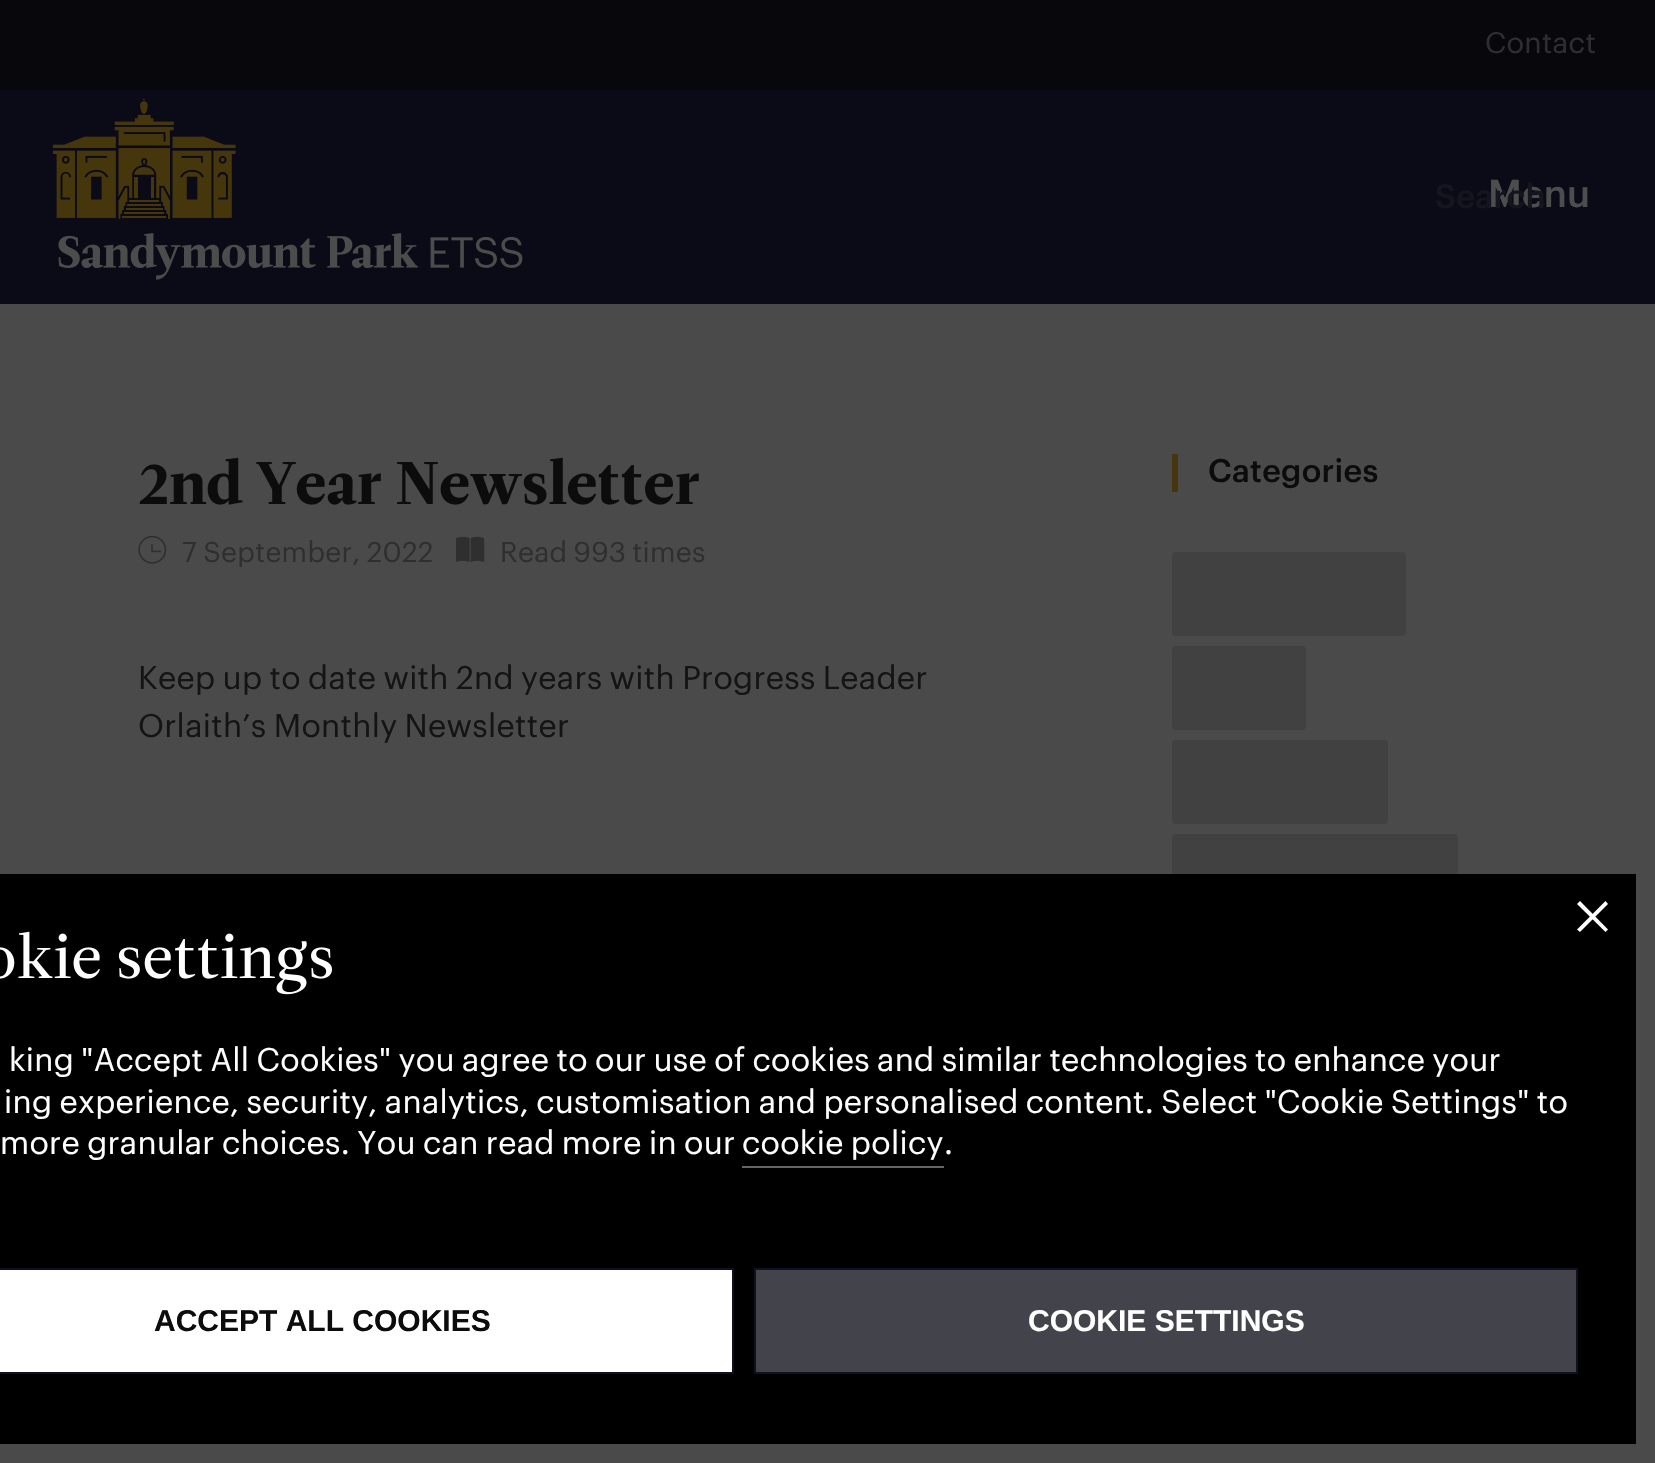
#include "include/core/SkBlurTypes.h"
#include "include/core/SkCanvas.h"
#include "include/core/SkData.h"
#include "include/core/SkFont.h"
#include "include/core/SkFontMgr.h"
#include "include/core/SkImage.h"
#include "include/core/SkMaskFilter.h"
#include "include/core/SkPaint.h"
#include "include/core/SkPathBuilder.h"
#include "include/core/SkTextBlob.h"
#include "include/effects/SkDashPathEffect.h"
#include "include/effects/SkGradientShader.h"
#include "include/utils/SkParsePath.h"

extern sk_sp<SkFontMgr> fontMgr;

void draw(SkCanvas* canvas) {
  SkPaint p;
  p.setAntiAlias(true);
  auto spacedText = [&](const char* s, float x, float y, const SkFont& font, const SkPaint& ink, float letter, float word) {
    std::vector<SkGlyphID> glyphs(font.countText(s, strlen(s), SkTextEncoding::kUTF8));
    std::vector<float> xs(glyphs.size());
    font.textToGlyphs(s, strlen(s), SkTextEncoding::kUTF8, glyphs);
    font.getXPos(glyphs, xs, x);
    float extra = 0;
    for (size_t i = 0; i < glyphs.size(); i++) {
      xs[i] += extra;
      extra += letter + word * (glyphs[i] == font.unicharToGlyph(' '));
    }
    canvas->drawTextBlob(SkTextBlob::MakeFromPosHGlyphs(glyphs, xs, y, font), 0, 0, ink);
  };
  canvas->clear(SkColorSetRGB(8, 8, 12));
  p.setColor(SkColorSetRGB(11, 10, 23));
  canvas->drawRect(SkRect::MakeLTRB(0, 90, 1655, 304), p);
  canvas->drawImageRect(SkImages::DeferredFromEncodedData(SkData::MakeFromFileName("images/1.png")), SkRect::MakeLTRB(52, 98, 523, 280), SkSamplingOptions());
  p.setColor(SkColorSetRGB(74, 74, 74));
  canvas->drawRect(SkRect::MakeLTRB(0, 304, 1655, 1463), p);
  p.setColor(SkColorSetRGB(70, 54, 13));
  canvas->drawRect(SkRect::MakeLTRB(1172, 454, 1178, 492), p);
  p.setColor(SkColorSetRGB(65, 65, 65));
  canvas->drawRoundRect(SkRect::MakeLTRB(1172, 552, 1406, 636), 4, 4, p);
  canvas->drawRoundRect(SkRect::MakeLTRB(1172, 646, 1306, 730), 4, 4, p);
  canvas->drawRoundRect(SkRect::MakeLTRB(1172, 740, 1388, 824), 4, 4, p);
  canvas->drawRoundRect(SkRect::MakeLTRB(1172, 834, 1458, 918), 4, 4, p);
  canvas->drawImageRect(SkImages::DeferredFromEncodedData(SkData::MakeFromFileName("images/2.png")), SkRect::MakeLTRB(139, 457, 699, 505), SkSamplingOptions());
  canvas->drawImageRect(SkImages::DeferredFromEncodedData(SkData::MakeFromFileName("images/3.png")), SkRect::MakeLTRB(138, 535, 167, 564), SkSamplingOptions());
  canvas->drawImageRect(SkImages::DeferredFromEncodedData(SkData::MakeFromFileName("images/4.png")), SkRect::MakeLTRB(456, 536, 485, 562), SkSamplingOptions());
  p.setColor(SK_ColorBLACK);
  canvas->drawRect(SkRect::MakeLTRB(0, 874, 1636, 1444), p);
  p.setColor(SK_ColorWHITE);
  canvas->drawPath(SkPathBuilder().moveTo(1608, 929.5f).lineTo(1605.5f, 932).lineTo(1577, 904).lineTo(1580, 901).close().detach(), p);
  canvas->drawPath(SkPathBuilder().moveTo(1605.5f, 901).lineTo(1608, 904).lineTo(1580, 932).lineTo(1577, 929.5f).close().detach(), p);
  canvas->drawImageRect(SkImages::DeferredFromEncodedData(SkData::MakeFromFileName("images/5.png")), SkRect::MakeLTRB(0, 931, 332, 995), SkSamplingOptions());
  p.setColor(SkColorSetRGB(102, 102, 102));
  canvas->drawRect(SkRect::MakeLTRB(742, 1166, 944, 1168), p);
  p.setColor(SK_ColorWHITE);
  canvas->drawRect(SkRect::MakeLTRB(-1, 1269, 733, 1373), p);
  p.setStyle(SkPaint::kStroke_Style);
  p.setStrokeWidth(2);
  p.setColor(SkColorSetRGB(15, 17, 33));
  canvas->drawRect(SkRect::MakeLTRB(-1, 1269, 733, 1373), p);
  p.setStyle(SkPaint::kFill_Style);
  p.setColor(SkColorSetRGB(67, 67, 75));
  canvas->drawRect(SkRect::MakeLTRB(755, 1269, 1577, 1373), p);
  p.setStyle(SkPaint::kStroke_Style);
  p.setColor(SkColorSetRGB(15, 17, 33));
  canvas->drawRect(SkRect::MakeLTRB(755, 1269, 1577, 1373), p);
  SkFont font1(fontMgr->matchFamilyStyle("Graphik", SkFontStyle::Normal()), 29);
  font1.setSubpixel(true);
  p.setStyle(SkPaint::kFill_Style);
  p.setColor(SkColorSetRGB(47, 47, 47));
  spacedText("Contact", 1485, 53, font1, p, 0.32f, 0);
  SkFont font2(fontMgr->matchFamilyStyle("Graphik", SkFontStyle(500, SkFontStyle::kNormal_Width, SkFontStyle::kUpright_Slant)), 38);
  font2.setSubpixel(true);
  p.setColor(SkColorSetRGB(77, 77, 77));
  canvas->drawString("Menu", 1488, 207, font2, p);
  SkFont font3(fontMgr->matchFamilyStyle("Graphik", SkFontStyle(500, SkFontStyle::kNormal_Width, SkFontStyle::kUpright_Slant)), 33);
  font3.setSubpixel(true);
  p.setColor(SkColorSetRGB(21, 21, 31));
  canvas->drawString("Search", 1435, 208, font3, p);
  SkFont font4(fontMgr->matchFamilyStyle("Graphik", SkFontStyle(500, SkFontStyle::kNormal_Width, SkFontStyle::kUpright_Slant)), 32);
  font4.setSubpixel(true);
  p.setColor(SkColorSetRGB(12, 12, 12));
  spacedText("Categories", 1208, 482, font4, p, 0.32f, 0);
  SkFont font5(fontMgr->matchFamilyStyle("Graphik", SkFontStyle::Normal()), 28);
  font5.setSubpixel(true);
  p.setColor(SkColorSetRGB(47, 47, 47));
  spacedText("7 September, 2022", 182, 562, font5, p, 0.32f, -1.6f);
  spacedText("Read 993 times", 500, 562, font5, p, 0.32f, -1.6f);
  SkFont font6(fontMgr->matchFamilyStyle("Graphik", SkFontStyle::Normal()), 32);
  font6.setSubpixel(true);
  p.setColor(SkColorSetRGB(20, 20, 20));
  spacedText("Keep up to date with 2nd years with Progress Leader", 138, 689, font6, p, 0.32f, -1.6f);
  spacedText("Orlaith’s Monthly Newsletter", 138, 737, font6, p, 0.32f, -1.6f);
  p.setColor(SK_ColorWHITE);
  spacedText("king \"Accept All Cookies\" you agree to our use of cookies and similar technologies to enhance your", 9, 1071, font6, p, 0.32f, -1.6f);
  spacedText("ing experience, security, analytics, customisation and personalised content. Select \"Cookie Settings\" to", 4, 1113, font6, p, 0.32f, -1.6f);
  spacedText("more granular choices. You can read more in our", 0, 1154, font6, p, 0.32f, -1.6f);
  spacedText("cookie policy", 742, 1154, font6, p, 0.32f, -1.6f);
  spacedText(".", 944, 1154, font6, p, 0.32f, 0);
  SkFont font7(fontMgr->matchFamilyStyle("Liberation Sans", SkFontStyle::Bold()), 30);
  font7.setSubpixel(true);
  p.setColor(SkColorSetRGB(12, 12, 12));
  canvas->drawString("ACCEPT ALL COOKIES", 154, 1331, font7, p);
  p.setColor(SK_ColorWHITE);
  canvas->drawString("COOKIE SETTINGS", 1028, 1331, font7, p);
}
